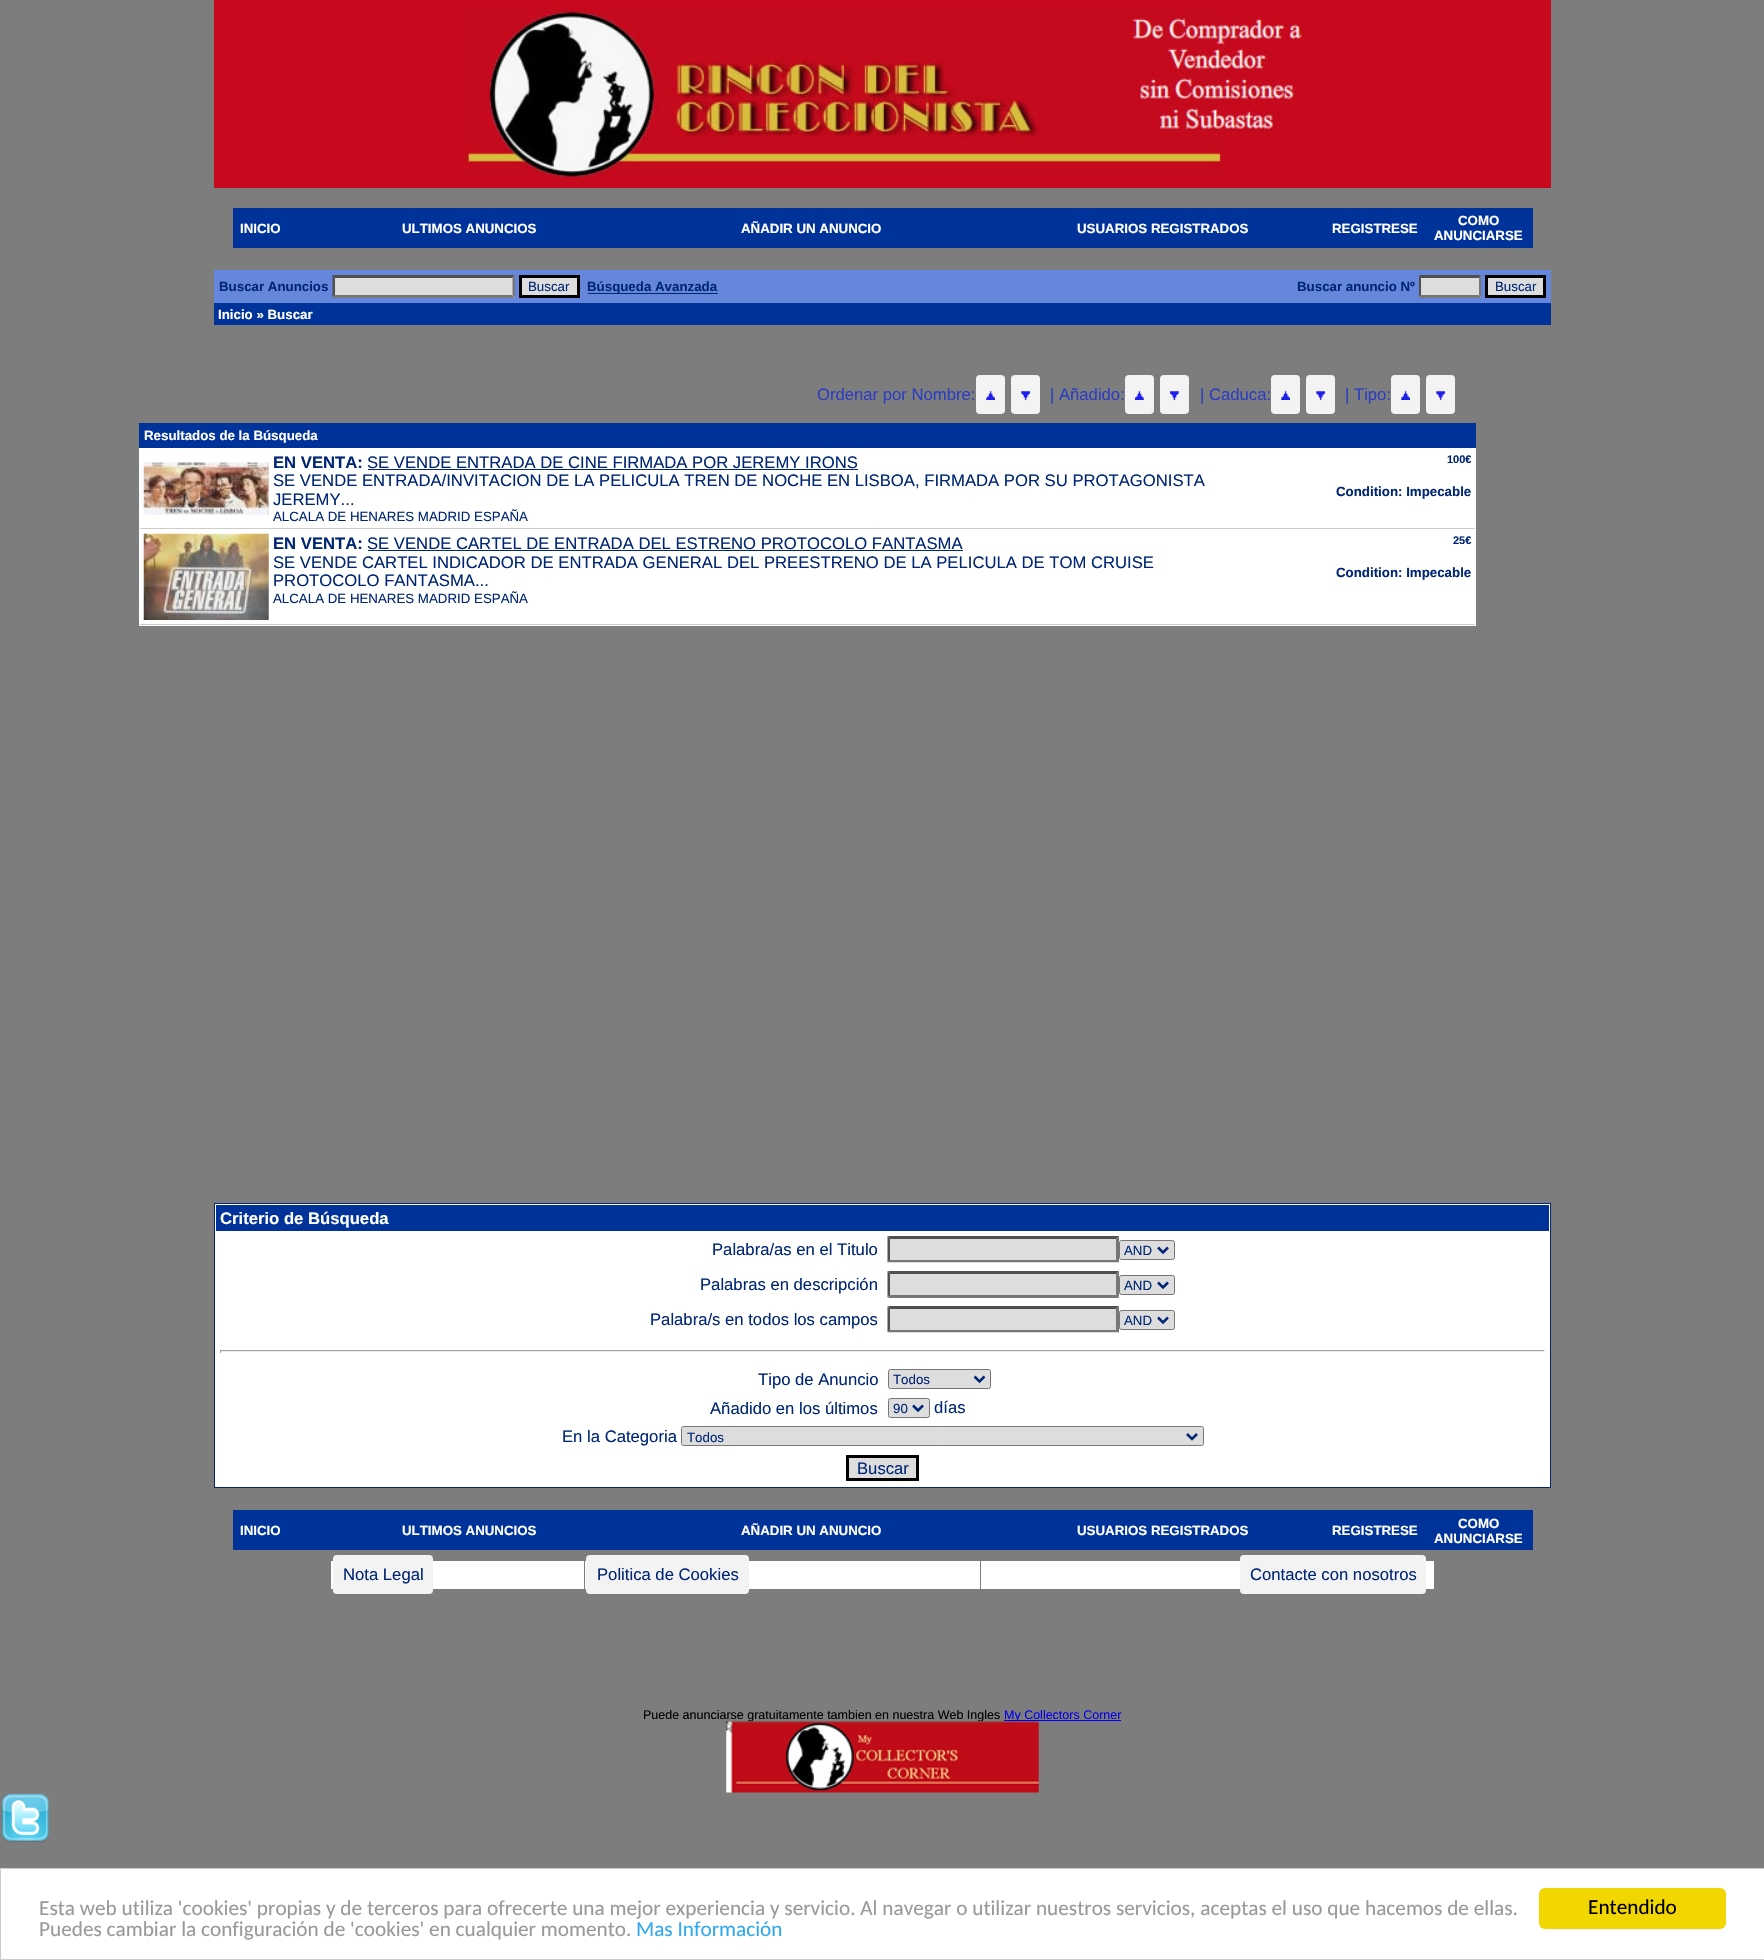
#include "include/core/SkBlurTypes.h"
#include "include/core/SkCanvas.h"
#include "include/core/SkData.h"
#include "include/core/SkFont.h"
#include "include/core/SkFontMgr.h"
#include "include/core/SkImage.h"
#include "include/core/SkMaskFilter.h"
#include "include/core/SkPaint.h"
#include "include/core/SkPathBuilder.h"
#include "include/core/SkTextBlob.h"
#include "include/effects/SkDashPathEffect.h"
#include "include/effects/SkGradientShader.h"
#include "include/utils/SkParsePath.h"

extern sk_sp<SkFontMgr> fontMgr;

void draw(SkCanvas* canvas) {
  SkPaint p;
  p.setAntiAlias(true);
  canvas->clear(SkColorSetRGB(125, 125, 125));
  p.setColor(SkColorSetRGB(198, 9, 29));
  canvas->drawRect(SkRect::MakeLTRB(214, 0, 1551, 188), p);
  canvas->drawImageRect(SkImages::DeferredFromEncodedData(SkData::MakeFromFileName("images/1.png")), SkRect::MakeLTRB(460, 10, 1310, 180), SkSamplingOptions());
  p.setColor(SkColorSetRGB(0, 51, 153));
  canvas->drawRect(SkRect::MakeLTRB(233, 208, 1533, 248), p);
  p.setColor(SkColorSetRGB(100, 135, 220));
  canvas->drawRect(SkRect::MakeLTRB(214, 270, 1551, 303), p);
  p.setColor(SkColorSetRGB(221, 221, 221));
  canvas->drawRect(SkRect::MakeLTRB(333, 275, 515, 298), p);
  p.setColor(SkColorSetRGB(79, 79, 79));
  canvas->drawPath(SkPathBuilder().moveTo(332, 275).lineTo(515, 275).lineTo(512, 278).lineTo(335, 278).close().detach(), p);
  p.setColor(SkColorSetRGB(118, 118, 118));
  canvas->drawPath(SkPathBuilder().moveTo(515, 275).lineTo(515, 297.5f).lineTo(512.5f, 295).lineTo(512.5f, 277.5f).close().detach(), p);
  canvas->drawPath(SkPathBuilder().moveTo(515, 298).lineTo(332, 298).lineTo(335, 295).lineTo(512, 295).close().detach(), p);
  p.setColor(SkColorSetRGB(79, 79, 79));
  canvas->drawPath(SkPathBuilder().moveTo(332.5f, 297.5f).lineTo(332.5f, 275).lineTo(335, 277.5f).lineTo(335, 295).close().detach(), p);
  p.setColor(SkColorSetRGB(221, 221, 221));
  canvas->drawRect(SkRect::MakeLTRB(520.5f, 276.5f, 578.5f, 296.5f), p);
  p.setStyle(SkPaint::kStroke_Style);
  p.setStrokeWidth(3);
  p.setColor(SK_ColorBLACK);
  canvas->drawRect(SkRect::MakeLTRB(520.5f, 276.5f, 578.5f, 296.5f), p);
  p.setStyle(SkPaint::kFill_Style);
  p.setColor(SkColorSetRGB(0, 38, 117));
  canvas->drawRect(SkRect::MakeLTRB(588, 293, 718, 294), p);
  p.setColor(SkColorSetRGB(221, 221, 221));
  canvas->drawRect(SkRect::MakeLTRB(1419, 275, 1481, 298), p);
  p.setColor(SkColorSetRGB(79, 79, 79));
  canvas->drawPath(SkPathBuilder().moveTo(1419, 275).lineTo(1481, 275).lineTo(1479, 278).lineTo(1421, 278).close().detach(), p);
  p.setColor(SkColorSetRGB(118, 118, 118));
  canvas->drawPath(SkPathBuilder().moveTo(1481, 275).lineTo(1481, 297.5f).lineTo(1479, 295).lineTo(1479, 277.5f).close().detach(), p);
  canvas->drawPath(SkPathBuilder().moveTo(1481, 298).lineTo(1419, 298).lineTo(1421, 295).lineTo(1479, 295).close().detach(), p);
  p.setColor(SkColorSetRGB(79, 79, 79));
  canvas->drawPath(SkPathBuilder().moveTo(1419, 297.5f).lineTo(1419, 275).lineTo(1421, 277.5f).lineTo(1421, 295).close().detach(), p);
  p.setColor(SkColorSetRGB(221, 221, 221));
  canvas->drawRect(SkRect::MakeLTRB(1486.5f, 276.5f, 1544.5f, 296.5f), p);
  p.setStyle(SkPaint::kStroke_Style);
  p.setColor(SK_ColorBLACK);
  canvas->drawRect(SkRect::MakeLTRB(1486.5f, 276.5f, 1544.5f, 296.5f), p);
  p.setStyle(SkPaint::kFill_Style);
  p.setColor(SkColorSetRGB(0, 51, 153));
  canvas->drawRect(SkRect::MakeLTRB(214, 303, 1551, 325), p);
  p.setColor(SkColorSetRGB(243, 243, 243));
  canvas->drawRoundRect(SkRect::MakeLTRB(976, 375, 1005, 414), 4, 4, p);
  canvas->drawRoundRect(SkRect::MakeLTRB(1011, 375, 1040, 414), 4, 4, p);
  canvas->drawRoundRect(SkRect::MakeLTRB(1125, 375, 1154, 414), 4, 4, p);
  canvas->drawRoundRect(SkRect::MakeLTRB(1160, 375, 1189, 414), 4, 4, p);
  canvas->drawRoundRect(SkRect::MakeLTRB(1271, 375, 1300, 414), 4, 4, p);
  canvas->drawRoundRect(SkRect::MakeLTRB(1306, 375, 1335, 414), 4, 4, p);
  canvas->drawRoundRect(SkRect::MakeLTRB(1391, 375, 1420, 414), 4, 4, p);
  canvas->drawRoundRect(SkRect::MakeLTRB(1426, 375, 1455, 414), 4, 4, p);
  canvas->drawImageRect(SkImages::DeferredFromEncodedData(SkData::MakeFromFileName("images/2.png")), SkRect::MakeLTRB(986, 391, 995, 400), SkSamplingOptions());
  canvas->drawImageRect(SkImages::DeferredFromEncodedData(SkData::MakeFromFileName("images/3.png")), SkRect::MakeLTRB(1021, 391, 1030, 400), SkSamplingOptions());
  canvas->drawImageRect(SkImages::DeferredFromEncodedData(SkData::MakeFromFileName("images/4.png")), SkRect::MakeLTRB(1135, 391, 1144, 400), SkSamplingOptions());
  canvas->drawImageRect(SkImages::DeferredFromEncodedData(SkData::MakeFromFileName("images/5.png")), SkRect::MakeLTRB(1170, 391, 1179, 400), SkSamplingOptions());
  canvas->drawImageRect(SkImages::DeferredFromEncodedData(SkData::MakeFromFileName("images/2.png")), SkRect::MakeLTRB(1281, 391, 1290, 400), SkSamplingOptions());
  canvas->drawImageRect(SkImages::DeferredFromEncodedData(SkData::MakeFromFileName("images/3.png")), SkRect::MakeLTRB(1316, 391, 1325, 400), SkSamplingOptions());
  canvas->drawImageRect(SkImages::DeferredFromEncodedData(SkData::MakeFromFileName("images/2.png")), SkRect::MakeLTRB(1401, 391, 1410, 400), SkSamplingOptions());
  canvas->drawImageRect(SkImages::DeferredFromEncodedData(SkData::MakeFromFileName("images/3.png")), SkRect::MakeLTRB(1436, 391, 1445, 400), SkSamplingOptions());
  p.setColor(SkColorSetRGB(0, 51, 153));
  canvas->drawRect(SkRect::MakeLTRB(139, 423, 1476, 448), p);
  p.setColor(SK_ColorWHITE);
  canvas->drawRect(SkRect::MakeLTRB(139, 448, 1476, 626), p);
  p.setColor(SkColorSetRGB(204, 204, 204));
  canvas->drawRect(SkRect::MakeLTRB(140, 528, 1475, 529), p);
  canvas->drawImageRect(SkImages::DeferredFromEncodedData(SkData::MakeFromFileName("images/6.png")), SkRect::MakeLTRB(143, 462, 269, 515), SkSamplingOptions());
  p.setColor(SkColorSetRGB(0, 38, 117));
  canvas->drawRect(SkRect::MakeLTRB(368, 469, 858, 470), p);
  p.setColor(SkColorSetRGB(204, 204, 204));
  canvas->drawRect(SkRect::MakeLTRB(140, 624, 1475, 625), p);
  canvas->drawImageRect(SkImages::DeferredFromEncodedData(SkData::MakeFromFileName("images/7.png")), SkRect::MakeLTRB(143, 533, 269, 620), SkSamplingOptions());
  p.setColor(SkColorSetRGB(0, 38, 117));
  canvas->drawRect(SkRect::MakeLTRB(368, 550, 963, 551), p);
  p.setColor(SK_ColorWHITE);
  canvas->drawRect(SkRect::MakeLTRB(214.5f, 1203.5f, 1550.5f, 1487.5f), p);
  p.setStyle(SkPaint::kStroke_Style);
  p.setStrokeWidth(1);
  p.setColor(SkColorSetRGB(0, 38, 117));
  canvas->drawRect(SkRect::MakeLTRB(214.5f, 1203.5f, 1550.5f, 1487.5f), p);
  p.setStyle(SkPaint::kFill_Style);
  p.setColor(SkColorSetRGB(0, 51, 153));
  canvas->drawRect(SkRect::MakeLTRB(216, 1205, 1549, 1231), p);
  p.setColor(SkColorSetRGB(221, 221, 221));
  canvas->drawRect(SkRect::MakeLTRB(888, 1236, 1119, 1263), p);
  p.setColor(SkColorSetRGB(79, 79, 79));
  canvas->drawPath(SkPathBuilder().moveTo(888, 1236).lineTo(1119, 1236).lineTo(1116, 1239).lineTo(890, 1239).close().detach(), p);
  p.setColor(SkColorSetRGB(118, 118, 118));
  canvas->drawPath(SkPathBuilder().moveTo(1119, 1236).lineTo(1119, 1262.5f).lineTo(1116, 1260).lineTo(1116, 1239).close().detach(), p);
  canvas->drawPath(SkPathBuilder().moveTo(1119, 1262).lineTo(888, 1262).lineTo(890, 1260).lineTo(1116, 1260).close().detach(), p);
  p.setColor(SkColorSetRGB(79, 79, 79));
  canvas->drawPath(SkPathBuilder().moveTo(887.5f, 1262.5f).lineTo(887.5f, 1236).lineTo(890, 1239).lineTo(890, 1260).close().detach(), p);
  p.setColor(SkColorSetRGB(221, 221, 221));
  canvas->drawRoundRect(SkRect::MakeLTRB(1119.5f, 1240.5f, 1174.5f, 1259.5f), 2, 2, p);
  p.setStyle(SkPaint::kStroke_Style);
  p.setColor(SkColorSetRGB(118, 118, 118));
  canvas->drawRoundRect(SkRect::MakeLTRB(1119.5f, 1240.5f, 1174.5f, 1259.5f), 2, 2, p);
  p.setStrokeWidth(2.5f);
  p.setColor(SkColorSetRGB(0, 38, 117));
  canvas->drawPath(SkPathBuilder().moveTo(1158, 1247.5f).lineTo(1163, 1252.5f).lineTo(1168, 1247.5f).detach(), p);
  p.setStyle(SkPaint::kFill_Style);
  p.setColor(SkColorSetRGB(221, 221, 221));
  canvas->drawRect(SkRect::MakeLTRB(888, 1271, 1119, 1298), p);
  p.setColor(SkColorSetRGB(79, 79, 79));
  canvas->drawPath(SkPathBuilder().moveTo(888, 1271).lineTo(1119, 1271).lineTo(1116, 1274).lineTo(890, 1274).close().detach(), p);
  p.setColor(SkColorSetRGB(118, 118, 118));
  canvas->drawPath(SkPathBuilder().moveTo(1119, 1271).lineTo(1119, 1297.5f).lineTo(1116, 1295).lineTo(1116, 1274).close().detach(), p);
  canvas->drawPath(SkPathBuilder().moveTo(1119, 1298).lineTo(888, 1298).lineTo(890, 1295).lineTo(1116, 1295).close().detach(), p);
  p.setColor(SkColorSetRGB(79, 79, 79));
  canvas->drawPath(SkPathBuilder().moveTo(887.5f, 1297.5f).lineTo(887.5f, 1271).lineTo(890, 1274).lineTo(890, 1295).close().detach(), p);
  p.setColor(SkColorSetRGB(221, 221, 221));
  canvas->drawRoundRect(SkRect::MakeLTRB(1119.5f, 1275.5f, 1174.5f, 1294.5f), 2, 2, p);
  p.setStyle(SkPaint::kStroke_Style);
  p.setStrokeWidth(1);
  p.setColor(SkColorSetRGB(118, 118, 118));
  canvas->drawRoundRect(SkRect::MakeLTRB(1119.5f, 1275.5f, 1174.5f, 1294.5f), 2, 2, p);
  p.setStrokeWidth(2.5f);
  p.setColor(SkColorSetRGB(0, 38, 117));
  canvas->drawPath(SkPathBuilder().moveTo(1158, 1282.5f).lineTo(1163, 1287.5f).lineTo(1168, 1282.5f).detach(), p);
  p.setStyle(SkPaint::kFill_Style);
  p.setColor(SkColorSetRGB(221, 221, 221));
  canvas->drawRect(SkRect::MakeLTRB(888, 1306, 1119, 1333), p);
  p.setColor(SkColorSetRGB(79, 79, 79));
  canvas->drawPath(SkPathBuilder().moveTo(888, 1306).lineTo(1119, 1306).lineTo(1116, 1309).lineTo(890, 1309).close().detach(), p);
  p.setColor(SkColorSetRGB(118, 118, 118));
  canvas->drawPath(SkPathBuilder().moveTo(1119, 1306).lineTo(1119, 1332.5f).lineTo(1116, 1330).lineTo(1116, 1309).close().detach(), p);
  canvas->drawPath(SkPathBuilder().moveTo(1119, 1332).lineTo(888, 1332).lineTo(890, 1330).lineTo(1116, 1330).close().detach(), p);
  p.setColor(SkColorSetRGB(79, 79, 79));
  canvas->drawPath(SkPathBuilder().moveTo(887.5f, 1332.5f).lineTo(887.5f, 1306).lineTo(890, 1309).lineTo(890, 1330).close().detach(), p);
  p.setColor(SkColorSetRGB(221, 221, 221));
  canvas->drawRoundRect(SkRect::MakeLTRB(1119.5f, 1310.5f, 1174.5f, 1329.5f), 2, 2, p);
  p.setStyle(SkPaint::kStroke_Style);
  p.setStrokeWidth(1);
  p.setColor(SkColorSetRGB(118, 118, 118));
  canvas->drawRoundRect(SkRect::MakeLTRB(1119.5f, 1310.5f, 1174.5f, 1329.5f), 2, 2, p);
  p.setStrokeWidth(2.5f);
  p.setColor(SkColorSetRGB(0, 38, 117));
  canvas->drawPath(SkPathBuilder().moveTo(1158, 1317.5f).lineTo(1163, 1322.5f).lineTo(1168, 1317.5f).detach(), p);
  p.setStyle(SkPaint::kFill_Style);
  p.setColor(SkColorSetRGB(159, 159, 159));
  canvas->drawRect(SkRect::MakeLTRB(220, 1350, 1545, 1351), p);
  p.setColor(SkColorSetRGB(238, 238, 238));
  canvas->drawRect(SkRect::MakeLTRB(1544, 1350, 1545, 1353), p);
  canvas->drawRect(SkRect::MakeLTRB(220, 1351, 1545, 1352), p);
  p.setColor(SkColorSetRGB(159, 159, 159));
  canvas->drawRect(SkRect::MakeLTRB(220, 1350, 221, 1353), p);
  p.setColor(SkColorSetRGB(221, 221, 221));
  canvas->drawRoundRect(SkRect::MakeLTRB(888.5f, 1369.5f, 990.5f, 1388.5f), 2, 2, p);
  p.setStyle(SkPaint::kStroke_Style);
  p.setStrokeWidth(1);
  p.setColor(SkColorSetRGB(118, 118, 118));
  canvas->drawRoundRect(SkRect::MakeLTRB(888.5f, 1369.5f, 990.5f, 1388.5f), 2, 2, p);
  p.setStrokeWidth(2.5f);
  p.setColor(SkColorSetRGB(0, 38, 117));
  canvas->drawPath(SkPathBuilder().moveTo(974.5f, 1376.5f).lineTo(979.5f, 1381.5f).lineTo(984.5f, 1376.5f).detach(), p);
  p.setStyle(SkPaint::kFill_Style);
  p.setColor(SkColorSetRGB(221, 221, 221));
  canvas->drawRoundRect(SkRect::MakeLTRB(888.5f, 1398.5f, 929.5f, 1417.5f), 2, 2, p);
  p.setStyle(SkPaint::kStroke_Style);
  p.setStrokeWidth(1);
  p.setColor(SkColorSetRGB(118, 118, 118));
  canvas->drawRoundRect(SkRect::MakeLTRB(888.5f, 1398.5f, 929.5f, 1417.5f), 2, 2, p);
  p.setStrokeWidth(2.5f);
  p.setColor(SkColorSetRGB(0, 38, 117));
  canvas->drawPath(SkPathBuilder().moveTo(913, 1405.5f).lineTo(918, 1410.5f).lineTo(923, 1405.5f).detach(), p);
  p.setStyle(SkPaint::kFill_Style);
  p.setColor(SkColorSetRGB(221, 221, 221));
  canvas->drawRoundRect(SkRect::MakeLTRB(681.5f, 1426.5f, 1203.5f, 1445.5f), 2, 2, p);
  p.setStyle(SkPaint::kStroke_Style);
  p.setStrokeWidth(1);
  p.setColor(SkColorSetRGB(118, 118, 118));
  canvas->drawRoundRect(SkRect::MakeLTRB(681.5f, 1426.5f, 1203.5f, 1445.5f), 2, 2, p);
  p.setStrokeWidth(2.5f);
  p.setColor(SkColorSetRGB(0, 38, 117));
  canvas->drawPath(SkPathBuilder().moveTo(1187, 1434).lineTo(1192, 1439).lineTo(1197, 1434).detach(), p);
  p.setStyle(SkPaint::kFill_Style);
  p.setColor(SkColorSetRGB(221, 221, 221));
  canvas->drawRect(SkRect::MakeLTRB(847.5f, 1456.5f, 917.5f, 1479.5f), p);
  p.setStyle(SkPaint::kStroke_Style);
  p.setStrokeWidth(3);
  p.setColor(SK_ColorBLACK);
  canvas->drawRect(SkRect::MakeLTRB(847.5f, 1456.5f, 917.5f, 1479.5f), p);
  p.setStyle(SkPaint::kFill_Style);
  p.setColor(SkColorSetRGB(0, 51, 153));
  canvas->drawRect(SkRect::MakeLTRB(233, 1510, 1533, 1550), p);
  p.setColor(SK_ColorWHITE);
  canvas->drawRect(SkRect::MakeLTRB(331, 1561, 584, 1589), p);
  p.setColor(SkColorSetRGB(243, 243, 243));
  canvas->drawRoundRect(SkRect::MakeLTRB(333, 1555, 433, 1594), 4, 4, p);
  p.setColor(SK_ColorWHITE);
  canvas->drawRect(SkRect::MakeLTRB(585, 1561, 980, 1589), p);
  p.setColor(SkColorSetRGB(243, 243, 243));
  canvas->drawRoundRect(SkRect::MakeLTRB(586, 1555, 749, 1594), 4, 4, p);
  p.setColor(SK_ColorWHITE);
  canvas->drawRect(SkRect::MakeLTRB(981, 1561, 1434, 1589), p);
  p.setColor(SkColorSetRGB(243, 243, 243));
  canvas->drawRoundRect(SkRect::MakeLTRB(1240, 1555, 1426, 1594), 4, 4, p);
  p.setColor(SkColorSetRGB(0, 0, 238));
  canvas->drawRect(SkRect::MakeLTRB(1004, 1720, 1121, 1721), p);
  canvas->drawImageRect(SkImages::DeferredFromEncodedData(SkData::MakeFromFileName("images/9.png")), SkRect::MakeLTRB(1, 1794, 49, 1843), SkSamplingOptions());
  p.setColor(SK_ColorWHITE);
  canvas->drawRect(SkRect::MakeLTRB(0.5f, 1868.5f, 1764.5f, 1959.5f), p);
  p.setStyle(SkPaint::kStroke_Style);
  p.setStrokeWidth(1);
  p.setColor(SkColorSetRGB(204, 204, 204));
  canvas->drawRect(SkRect::MakeLTRB(0.5f, 1868.5f, 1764.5f, 1959.5f), p);
  p.setStyle(SkPaint::kFill_Style);
  p.setColor(SkColorSetRGB(241, 214, 0));
  canvas->drawRoundRect(SkRect::MakeLTRB(1539, 1888, 1726, 1929), 6, 6, p);
  SkFont font1(fontMgr->matchFamilyStyle("Liberation Sans", SkFontStyle::Bold()), 13.3f);
  font1.setSubpixel(true);
  p.setColor(SK_ColorWHITE);
  canvas->drawString("INICIO", 240, 233, font1, p);
  canvas->drawString("ULTIMOS ANUNCIOS", 402, 233, font1, p);
  canvas->drawString("AÑADIR UN ANUNCIO", 741, 233, font1, p);
  canvas->drawString("USUARIOS REGISTRADOS", 1077, 233, font1, p);
  canvas->drawString("REGISTRESE", 1332, 233, font1, p);
  canvas->drawString("COMO", 1458, 225, font1, p);
  canvas->drawString("ANUNCIARSE", 1434, 240, font1, p);
  p.setColor(SkColorSetRGB(0, 38, 117));
  canvas->drawString("Buscar Anuncios", 219, 291, font1, p);
  SkFont font2(fontMgr->matchFamilyStyle("Liberation Sans", SkFontStyle::Normal()), 13.3f);
  font2.setSubpixel(true);
  canvas->drawString("Buscar", 528, 291, font2, p);
  canvas->drawString("Búsqueda Avanzada", 587, 291, font1, p);
  canvas->drawString("Buscar anuncio Nº", 1297, 291, font1, p);
  canvas->drawString("Buscar", 1495, 291, font2, p);
  p.setColor(SK_ColorWHITE);
  canvas->drawString("Inicio » Buscar", 218, 319, font1, p);
  SkFont font3(fontMgr->matchFamilyStyle("Liberation Sans", SkFontStyle::Normal()), 16.67f);
  font3.setSubpixel(true);
  p.setColor(SkColorSetRGB(43, 62, 193));
  canvas->drawString("Ordenar por Nombre:", 817, 400, font3, p);
  canvas->drawString("| Añadido:", 1050, 400, font3, p);
  canvas->drawString("| Caduca:", 1200, 400, font3, p);
  canvas->drawString("| Tipo:", 1345, 400, font3, p);
  p.setColor(SK_ColorWHITE);
  canvas->drawString("Resultados de la Búsqueda", 144, 440, font1, p);
  SkFont font4(fontMgr->matchFamilyStyle("Liberation Sans", SkFontStyle::Bold()), 16.67f);
  font4.setSubpixel(true);
  p.setColor(SkColorSetRGB(0, 38, 117));
  canvas->drawString("EN VENTA:", 273, 468, font4, p);
  canvas->drawString("SE VENDE ENTRADA DE CINE FIRMADA POR JEREMY IRONS", 367, 468, font3, p);
  canvas->drawString("SE VENDE ENTRADA/INVITACION DE LA PELICULA TREN DE NOCHE EN LISBOA, FIRMADA POR SU PROTAGONISTA", 273, 486, font3, p);
  canvas->drawString("JEREMY...", 273, 505, font3, p);
  canvas->drawString("ALCALA DE HENARES MADRID ESPAÑA", 273, 521, font2, p);
  SkFont font5(fontMgr->matchFamilyStyle("Liberation Sans", SkFontStyle::Bold()), 11);
  font5.setSubpixel(true);
  canvas->drawString("100€", 1447, 463, font5, p);
  canvas->drawString("Condition: Impecable", 1336, 496, font1, p);
  canvas->drawString("EN VENTA:", 273, 549, font4, p);
  canvas->drawString("SE VENDE CARTEL DE ENTRADA DEL ESTRENO PROTOCOLO FANTASMA", 367, 549, font3, p);
  canvas->drawString("SE VENDE CARTEL INDICADOR DE ENTRADA GENERAL DEL PREESTRENO DE LA PELICULA DE TOM CRUISE", 273, 568, font3, p);
  canvas->drawString("PROTOCOLO FANTASMA...", 273, 586, font3, p);
  canvas->drawString("ALCALA DE HENARES MADRID ESPAÑA", 273, 603, font2, p);
  canvas->drawString("25€", 1453, 544, font5, p);
  canvas->drawString("Condition: Impecable", 1336, 577, font1, p);
  p.setColor(SK_ColorWHITE);
  canvas->drawString("Criterio de Búsqueda", 220, 1224, font4, p);
  p.setColor(SkColorSetRGB(0, 38, 117));
  canvas->drawString("Palabra/as en el Titulo", 712, 1255, font3, p);
  canvas->drawString("AND", 1124, 1255, font2, p);
  canvas->drawString("Palabras en descripción", 700, 1290, font3, p);
  canvas->drawString("AND", 1124, 1290, font2, p);
  canvas->drawString("Palabra/s en todos los campos", 650, 1325, font3, p);
  canvas->drawString("AND", 1124, 1325, font2, p);
  canvas->drawString("Tipo de Anuncio", 758, 1385, font3, p);
  canvas->drawString("Todos", 893, 1384, font2, p);
  canvas->drawString("Añadido en los últimos", 710, 1414, font3, p);
  canvas->drawString("90", 893, 1413, font2, p);
  canvas->drawString("días", 934, 1413, font3, p);
  canvas->drawString("En la Categoria", 562, 1442, font3, p);
  canvas->drawString("Todos", 687, 1442, font2, p);
  canvas->drawString("Buscar", 857, 1474, font3, p);
  p.setColor(SK_ColorWHITE);
  canvas->drawString("INICIO", 240, 1535, font1, p);
  canvas->drawString("ULTIMOS ANUNCIOS", 402, 1535, font1, p);
  canvas->drawString("AÑADIR UN ANUNCIO", 741, 1535, font1, p);
  canvas->drawString("USUARIOS REGISTRADOS", 1077, 1535, font1, p);
  canvas->drawString("REGISTRESE", 1332, 1535, font1, p);
  canvas->drawString("COMO", 1458, 1528, font1, p);
  canvas->drawString("ANUNCIARSE", 1434, 1543, font1, p);
  p.setColor(SkColorSetRGB(0, 38, 117));
  canvas->drawString("Nota Legal", 343, 1580, font3, p);
  canvas->drawString("Politica de Cookies", 597, 1580, font3, p);
  canvas->drawString("Contacte con nosotros", 1250, 1580, font3, p);
  SkFont font6(fontMgr->matchFamilyStyle("Liberation Sans", SkFontStyle::Normal()), 12.5f);
  font6.setSubpixel(true);
  p.setColor(SK_ColorBLACK);
  canvas->drawString("Puede anunciarse gratuitamente tambien en nuestra Web Ingles", 643, 1719, font6, p);
  p.setColor(SkColorSetRGB(0, 0, 238));
  canvas->drawString("My Collectors Corner", 1004, 1719, font6, p);
  canvas->drawImageRect(SkImages::DeferredFromEncodedData(SkData::MakeFromFileName("images/8.png")), SkRect::MakeLTRB(726, 1721, 1039, 1793), SkSamplingOptions());
  SkFont font7(fontMgr->matchFamilyStyle("Carlito", SkFontStyle::Normal()), 21.25f);
  font7.setSubpixel(true);
  p.setColor(SkColorSetRGB(153, 153, 153));
  canvas->drawString("Esta web utiliza 'cookies' propias y de terceros para ofrecerte una mejor experiencia y servicio. Al navegar o utilizar nuestros servicios, aceptas el uso que hacemos de ellas.", 39, 1915, font7, p);
  canvas->drawString("Puedes cambiar la configuración de 'cookies' en cualquier momento.", 39, 1936, font7, p);
  p.setColor(SkColorSetRGB(49, 168, 240));
  canvas->drawString("Mas Información", 636, 1936, font7, p);
  p.setColor(SK_ColorBLACK);
  canvas->drawString("Entendido", 1588, 1914, font7, p);
}
